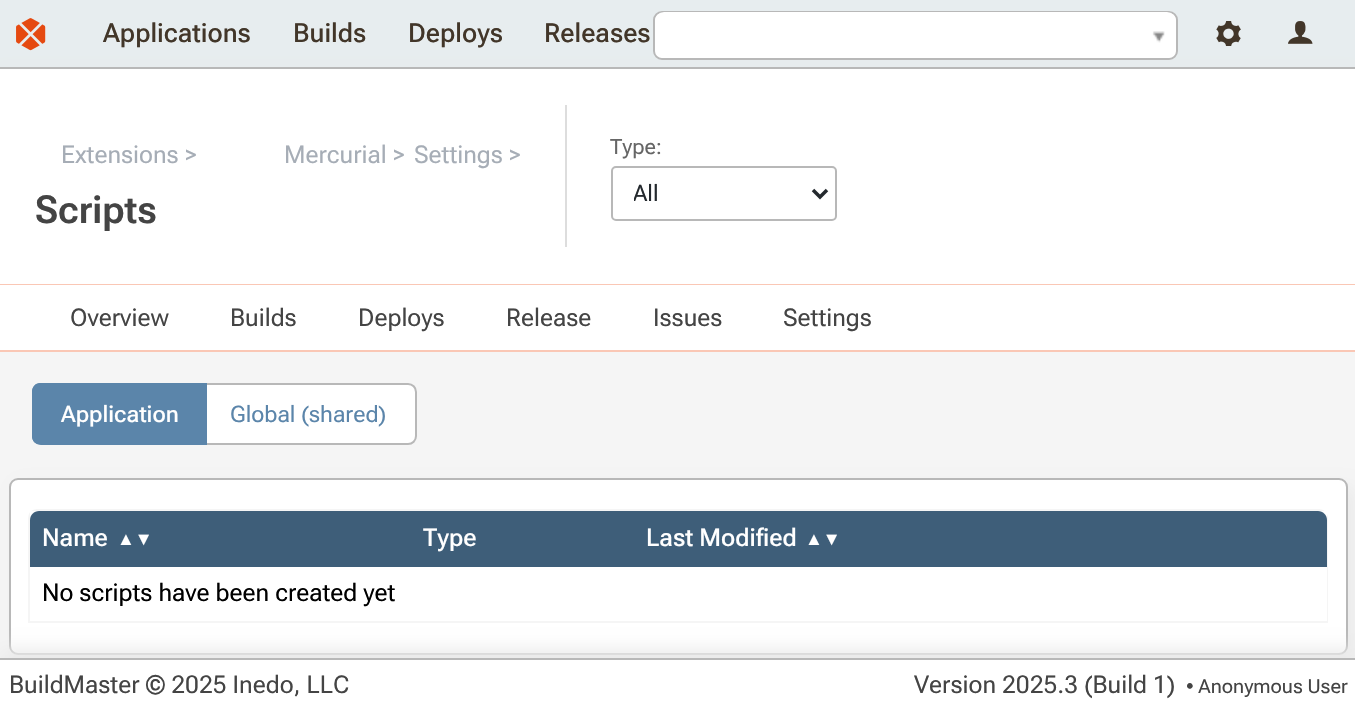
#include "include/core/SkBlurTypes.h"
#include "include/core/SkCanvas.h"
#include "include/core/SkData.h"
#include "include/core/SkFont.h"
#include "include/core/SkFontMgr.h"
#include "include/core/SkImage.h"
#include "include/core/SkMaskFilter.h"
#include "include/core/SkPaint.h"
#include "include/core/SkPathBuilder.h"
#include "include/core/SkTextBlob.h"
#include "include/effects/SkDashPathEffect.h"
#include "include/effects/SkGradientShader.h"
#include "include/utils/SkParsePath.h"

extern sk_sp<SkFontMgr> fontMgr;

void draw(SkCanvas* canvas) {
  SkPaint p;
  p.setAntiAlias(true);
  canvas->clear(SkColorSetRGB(245, 245, 245));
  p.setColor(SkColorSetRGB(231, 237, 239));
  canvas->drawRect(SkRect::MakeLTRB(0, 0, 1355, 67), p);
  p.setColor(SkColorSetRGB(235, 235, 235));
  p.setMaskFilter(SkMaskFilter::MakeBlur(kNormal_SkBlurStyle, 9));
  canvas->drawRect(SkRect::MakeLTRB(0, 75, 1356, 294), p);
  p.setMaskFilter(nullptr);
  canvas->drawImageRect(SkImages::DeferredFromEncodedData(SkData::MakeFromFileName("images/1.png")), SkRect::MakeLTRB(16, 18, 46, 51), SkSamplingOptions());
  p.setColor(SK_ColorWHITE);
  canvas->drawRoundRect(SkRect::MakeLTRB(654, 12, 1177, 59), 8, 8, p);
  p.setStyle(SkPaint::kStroke_Style);
  p.setStrokeWidth(2);
  p.setColor(SkColorSetRGB(184, 184, 184));
  canvas->drawRoundRect(SkRect::MakeLTRB(654, 12, 1177, 59), 8, 8, p);
  p.setStyle(SkPaint::kFill_Style);
  p.setColor(SK_ColorWHITE);
  canvas->drawRoundRect(SkRect::MakeLTRB(655, 12, 1176, 58), 9, 9, p);
  canvas->drawImageRect(SkImages::DeferredFromEncodedData(SkData::MakeFromFileName("images/2.png")), SkRect::MakeLTRB(1152, 31, 1165, 43), SkSamplingOptions());
  canvas->drawImageRect(SkImages::DeferredFromEncodedData(SkData::MakeFromFileName("images/3.png")), SkRect::MakeLTRB(1216, 21, 1241, 46), SkSamplingOptions());
  canvas->drawImageRect(SkImages::DeferredFromEncodedData(SkData::MakeFromFileName("images/4.png")), SkRect::MakeLTRB(1288, 21, 1313, 44), SkSamplingOptions());
  canvas->drawRect(SkRect::MakeLTRB(0, 69, 1355, 284), p);
  p.setColor(SkColorSetRGB(184, 184, 184));
  canvas->drawRect(SkRect::MakeLTRB(0, 67, 1355, 69), p);
  p.setColor(SkColorSetRGB(250, 199, 181));
  canvas->drawRect(SkRect::MakeLTRB(0, 284, 1355, 285), p);
  p.setColor(SkColorSetRGB(221, 221, 221));
  canvas->drawRect(SkRect::MakeLTRB(565, 105, 567, 247), p);
  p.setStyle(SkPaint::kStroke_Style);
  p.setColor(SkColorSetRGB(184, 184, 184));
  canvas->drawRoundRect(SkRect::MakeLTRB(612, 167, 836, 220), 4, 4, p);
  p.setStrokeWidth(3.5f);
  p.setColor(SkColorSetRGB(36, 41, 46));
  canvas->drawPath(SkPathBuilder().moveTo(813, 190).lineTo(820, 197).lineTo(827, 190).detach(), p);
  p.setStyle(SkPaint::kFill_Style);
  p.setColor(SK_ColorWHITE);
  canvas->drawRect(SkRect::MakeLTRB(0, 285, 1355, 350), p);
  p.setColor(SkColorSetRGB(250, 199, 181));
  canvas->drawRect(SkRect::MakeLTRB(0, 350, 1355, 352), p);
  p.setColor(SK_ColorWHITE);
  canvas->drawPath(SkPathBuilder().moveTo(201, 384).lineTo(408, 384).cubicTo(412.5f, 384, 416, 387.5f, 416, 392).lineTo(416, 436).cubicTo(416, 440.5f, 412.5f, 444, 408, 444).lineTo(201, 444).close().detach(), p);
  p.setStyle(SkPaint::kStroke_Style);
  p.setStrokeWidth(2);
  p.setColor(SkColorSetRGB(184, 184, 184));
  canvas->drawPath(SkPathBuilder().moveTo(201, 384).lineTo(408, 384).cubicTo(412.5f, 384, 416, 387.5f, 416, 392).lineTo(416, 436).cubicTo(416, 440.5f, 412.5f, 444, 408, 444).lineTo(201, 444).close().detach(), p);
  p.setStyle(SkPaint::kFill_Style);
  p.setColor(SkColorSetRGB(91, 133, 170));
  canvas->drawPath(SkPathBuilder().moveTo(41, 383).lineTo(207, 383).lineTo(207, 445).lineTo(41, 445).cubicTo(36, 445, 32, 441, 32, 436).lineTo(32, 392).cubicTo(32, 387, 36, 383, 41, 383).close().detach(), p);
  canvas->drawPath(SkPathBuilder(SkPathFillType::kEvenOdd).moveTo(40, 383).lineTo(206, 383).lineTo(206, 444).lineTo(40, 444).cubicTo(35, 444, 32, 441, 32, 436).lineTo(32, 392).cubicTo(32, 387, 35, 383, 40, 383).close().moveTo(40, 385).lineTo(206, 385).lineTo(206, 443).lineTo(40, 443).cubicTo(36, 443, 33, 440, 33, 436).lineTo(33, 392).cubicTo(33, 388, 36, 385, 40, 385).close().detach(), p);
  p.setColor(SkColorSetRGB(235, 235, 235));
  p.setMaskFilter(SkMaskFilter::MakeBlur(kNormal_SkBlurStyle, 9));
  canvas->drawRoundRect(SkRect::MakeLTRB(18, 487, 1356, 663), 9, 9, p);
  p.setMaskFilter(nullptr);
  p.setColor(SK_ColorWHITE);
  canvas->drawRoundRect(SkRect::MakeLTRB(10, 479, 1347, 654), 8, 8, p);
  p.setStyle(SkPaint::kStroke_Style);
  p.setColor(SkColorSetRGB(184, 184, 184));
  canvas->drawRoundRect(SkRect::MakeLTRB(10, 479, 1347, 654), 8, 8, p);
  p.setColor(SkColorSetRGB(245, 245, 245));
  canvas->drawPath(SkPathBuilder().moveTo(37, 510).lineTo(1319, 510).cubicTo(1323.5f, 510, 1327, 513.5f, 1327, 518).lineTo(1327, 622).lineTo(29, 622).lineTo(29, 518).cubicTo(29, 513.5f, 32.5f, 510, 37, 510).close().detach(), p);
  p.setStyle(SkPaint::kFill_Style);
  p.setColor(SK_ColorWHITE);
  canvas->drawRect(SkRect::MakeLTRB(30, 511, 1327, 520), p);
  p.setColor(SkColorSetRGB(62, 94, 121));
  canvas->drawPath(SkPathBuilder().moveTo(39, 511).lineTo(411, 511).lineTo(411, 567).lineTo(30, 567).lineTo(30, 520).cubicTo(30, 515, 34, 511, 39, 511).close().detach(), p);
  canvas->drawRect(SkRect::MakeLTRB(411, 511, 1257, 567), p);
  canvas->drawPath(SkPathBuilder().moveTo(1257, 511).lineTo(1318, 511).cubicTo(1323, 511, 1327, 515, 1327, 520).lineTo(1327, 567).lineTo(1257, 567).close().detach(), p);
  p.setColor(SK_ColorWHITE);
  canvas->drawRect(SkRect::MakeLTRB(1326, 567, 1327, 621), p);
  p.setColor(SkColorSetRGB(235, 235, 235));
  p.setMaskFilter(SkMaskFilter::MakeBlur(kNormal_SkBlurStyle, 9));
  canvas->drawRect(SkRect::MakeLTRB(0, 649, 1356, 704), p);
  p.setMaskFilter(nullptr);
  p.setColor(SK_ColorWHITE);
  canvas->drawRect(SkRect::MakeLTRB(0, 660, 1355, 711), p);
  p.setColor(SkColorSetRGB(184, 184, 184));
  canvas->drawRect(SkRect::MakeLTRB(0, 658, 1355, 660), p);
  SkFont font1(fontMgr->matchFamilyStyle("Roboto Flex", SkFontStyle(500, SkFontStyle::kNormal_Width, SkFontStyle::kUpright_Slant)), 26.25f);
  font1.setSubpixel(true);
  p.setColor(SkColorSetRGB(66, 54, 41));
  canvas->drawString("Applications", 103, 42, font1, p);
  canvas->drawString("Builds", 293, 42, font1, p);
  canvas->drawString("Deploys", 408, 42, font1, p);
  canvas->drawString("Releases", 544, 42, font1, p);
  SkFont font2(fontMgr->matchFamilyStyle("Roboto Flex", SkFontStyle::Normal()), 24.5f);
  font2.setSubpixel(true);
  p.setColor(SkColorSetRGB(166, 173, 182));
  canvas->drawString("Extensions >", 61, 163, font2, p);
  canvas->drawString("Mercurial >", 284, 163, font2, p);
  canvas->drawString("Settings >", 414, 163, font2, p);
  SkFont font3(fontMgr->matchFamilyStyle("Roboto Flex", SkFontStyle(600, SkFontStyle::kNormal_Width, SkFontStyle::kUpright_Slant)), 38.5f);
  font3.setSubpixel(true);
  p.setColor(SkColorSetRGB(68, 68, 68));
  canvas->drawString("Scripts", 35, 223, font3, p);
  SkFont font4(fontMgr->matchFamilyStyle("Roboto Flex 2", SkFontStyle::Normal()), 21);
  font4.setSubpixel(true);
  p.setColor(SkColorSetRGB(102, 102, 102));
  canvas->drawString("Type:", 610, 154, font4, p);
  canvas->save();
  canvas->clipRect(SkRect::MakeLTRB(634, 179, 793, 208));
  SkFont font5(fontMgr->matchFamilyStyle("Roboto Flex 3", SkFontStyle::Normal()), 22.75f);
  font5.setSubpixel(true);
  p.setColor(SkColorSetRGB(36, 41, 46));
  canvas->drawString("All", 633, 201, font5, p);
  canvas->restore();
  p.setColor(SkColorSetRGB(68, 68, 68));
  canvas->drawString("Overview", 70, 326, font2, p);
  canvas->drawString("Builds", 230, 326, font2, p);
  canvas->drawString("Deploys", 358, 326, font2, p);
  canvas->drawString("Release", 506, 326, font2, p);
  canvas->drawString("Issues", 653, 326, font2, p);
  canvas->drawString("Settings", 783, 326, font2, p);
  SkFont font6(fontMgr->matchFamilyStyle("Roboto Flex 2", SkFontStyle(500, SkFontStyle::kNormal_Width, SkFontStyle::kUpright_Slant)), 22.75f);
  font6.setSubpixel(true);
  p.setColor(SK_ColorWHITE);
  canvas->drawString("Application", 61, 422, font6, p);
  p.setColor(SkColorSetRGB(91, 133, 170));
  canvas->drawString("Global (shared)", 230, 422, font5, p);
  SkFont font7(fontMgr->matchFamilyStyle("Roboto Flex", SkFontStyle(500, SkFontStyle::kNormal_Width, SkFontStyle::kUpright_Slant)), 24.5f);
  font7.setSubpixel(true);
  p.setColor(SK_ColorWHITE);
  canvas->drawString("Name", 42, 546, font7, p);
  SkFont font8(fontMgr->matchFamilyStyle("Liberation Sans", SkFontStyle::Normal()), 18);
  font8.setSubpixel(true);
  canvas->drawString("▲▼", 117, 545, font8, p);
  canvas->drawString("Type", 423, 546, font7, p);
  canvas->drawString("Last Modified", 646, 546, font7, p);
  canvas->drawString("▲▼", 805, 545, font8, p);
  p.setColor(SK_ColorBLACK);
  canvas->drawString("No scripts have been created yet", 42, 601, font2, p);
  p.setColor(SkColorSetRGB(68, 68, 68));
  canvas->drawString("BuildMaster © 2025 Inedo, LLC", 9, 693, font2, p);
  canvas->drawString("Version 2025.3 (Build 1)", 914, 693, font2, p);
  SkFont font9(fontMgr->matchFamilyStyle("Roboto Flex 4", SkFontStyle::Normal()), 19.25f);
  font9.setSubpixel(true);
  canvas->drawString("• Anonymous User", 1186, 693, font9, p);
}
